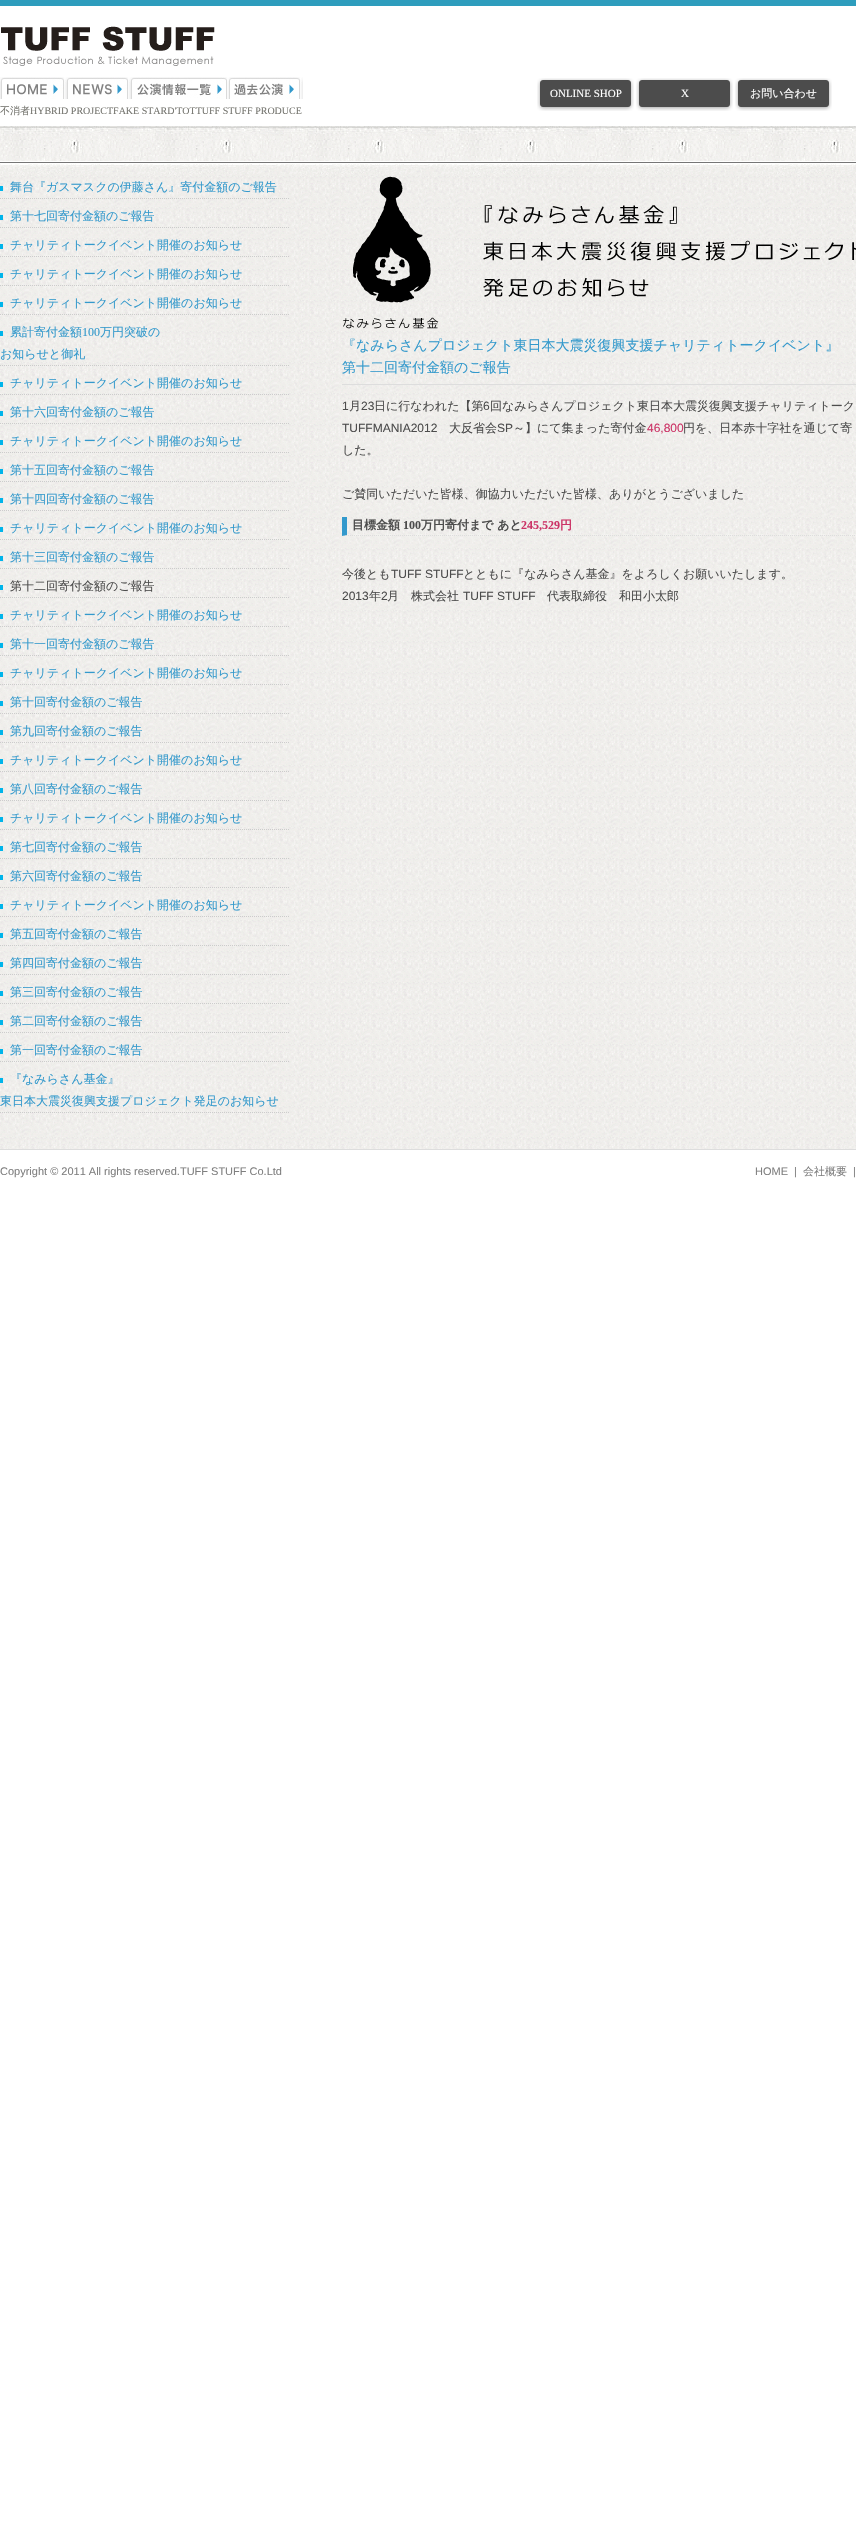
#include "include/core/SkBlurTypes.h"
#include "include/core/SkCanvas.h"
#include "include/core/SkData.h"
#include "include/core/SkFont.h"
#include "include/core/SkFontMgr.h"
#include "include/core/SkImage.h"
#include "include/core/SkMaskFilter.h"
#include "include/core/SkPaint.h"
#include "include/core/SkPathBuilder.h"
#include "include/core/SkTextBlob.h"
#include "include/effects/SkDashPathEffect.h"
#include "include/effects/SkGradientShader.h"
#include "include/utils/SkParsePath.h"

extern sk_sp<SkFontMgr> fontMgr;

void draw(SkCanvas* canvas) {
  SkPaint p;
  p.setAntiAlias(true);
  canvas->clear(SK_ColorWHITE);
  p.setColor(SkColorSetRGB(46, 157, 189));
  canvas->drawRect(SkRect::MakeLTRB(0, 0, 856, 6), p);
  canvas->drawImageRect(SkImages::DeferredFromEncodedData(SkData::MakeFromFileName("images/1.png")), SkRect::MakeLTRB(1, 26, 215, 66), SkSamplingOptions());
  canvas->drawImageRect(SkImages::DeferredFromEncodedData(SkData::MakeFromFileName("images/2.png")), SkRect::MakeLTRB(537, 78, 634, 111), SkSamplingOptions());
  canvas->drawImageRect(SkImages::DeferredFromEncodedData(SkData::MakeFromFileName("images/2.png")), SkRect::MakeLTRB(636, 78, 733, 111), SkSamplingOptions());
  canvas->drawImageRect(SkImages::DeferredFromEncodedData(SkData::MakeFromFileName("images/2.png")), SkRect::MakeLTRB(735, 78, 832, 111), SkSamplingOptions());
  canvas->drawImageRect(SkImages::DeferredFromEncodedData(SkData::MakeFromFileName("images/3.png")), SkRect::MakeLTRB(0, 77, 66, 99), SkSamplingOptions());
  canvas->drawImageRect(SkImages::DeferredFromEncodedData(SkData::MakeFromFileName("images/4.png")), SkRect::MakeLTRB(66, 77, 130, 99), SkSamplingOptions());
  canvas->drawImageRect(SkImages::DeferredFromEncodedData(SkData::MakeFromFileName("images/5.png")), SkRect::MakeLTRB(130, 77, 229, 99), SkSamplingOptions());
  canvas->drawImageRect(SkImages::DeferredFromEncodedData(SkData::MakeFromFileName("images/6.png")), SkRect::MakeLTRB(229, 77, 303, 99), SkSamplingOptions());
  canvas->drawImageRect(SkImages::DeferredFromEncodedData(SkData::MakeFromFileName("images/7.png")), SkRect::MakeLTRB(0, 126, 856, 176), SkSamplingOptions());
  canvas->drawImageRect(SkImages::DeferredFromEncodedData(SkData::MakeFromFileName("images/8.png")), SkRect::MakeLTRB(0, 176, 856, 1149), SkSamplingOptions());
  p.setStyle(SkPaint::kStroke_Style);
  p.setStrokeWidth(1);
  p.setColor(SkColorSetRGB(204, 204, 204));
  p.setPathEffect(SkDashPathEffect::Make({{1, 1}}, 0));
  canvas->drawPath(SkPathBuilder().moveTo(0, 198.5f).lineTo(290, 198.5f).detach(), p);
  p.setPathEffect(nullptr);
  p.setStyle(SkPaint::kFill_Style);
  p.setColor(SkColorSetRGB(0, 180, 234));
  canvas->drawRect(SkRect::MakeLTRB(0, 186, 3, 191), p);
  p.setStyle(SkPaint::kStroke_Style);
  p.setColor(SkColorSetRGB(204, 204, 204));
  p.setPathEffect(SkDashPathEffect::Make({{1, 1}}, 0));
  canvas->drawPath(SkPathBuilder().moveTo(0, 227.5f).lineTo(290, 227.5f).detach(), p);
  p.setPathEffect(nullptr);
  p.setStyle(SkPaint::kFill_Style);
  p.setColor(SkColorSetRGB(0, 180, 234));
  canvas->drawRect(SkRect::MakeLTRB(0, 215, 3, 220), p);
  p.setStyle(SkPaint::kStroke_Style);
  p.setColor(SkColorSetRGB(204, 204, 204));
  p.setPathEffect(SkDashPathEffect::Make({{1, 1}}, 0));
  canvas->drawPath(SkPathBuilder().moveTo(0, 256.5f).lineTo(290, 256.5f).detach(), p);
  p.setPathEffect(nullptr);
  p.setStyle(SkPaint::kFill_Style);
  p.setColor(SkColorSetRGB(0, 180, 234));
  canvas->drawRect(SkRect::MakeLTRB(0, 244, 3, 249), p);
  p.setStyle(SkPaint::kStroke_Style);
  p.setColor(SkColorSetRGB(204, 204, 204));
  p.setPathEffect(SkDashPathEffect::Make({{1, 1}}, 0));
  canvas->drawPath(SkPathBuilder().moveTo(0, 285.5f).lineTo(290, 285.5f).detach(), p);
  p.setPathEffect(nullptr);
  p.setStyle(SkPaint::kFill_Style);
  p.setColor(SkColorSetRGB(0, 180, 234));
  canvas->drawRect(SkRect::MakeLTRB(0, 273, 3, 278), p);
  p.setStyle(SkPaint::kStroke_Style);
  p.setColor(SkColorSetRGB(204, 204, 204));
  p.setPathEffect(SkDashPathEffect::Make({{1, 1}}, 0));
  canvas->drawPath(SkPathBuilder().moveTo(0, 314.5f).lineTo(290, 314.5f).detach(), p);
  p.setPathEffect(nullptr);
  p.setStyle(SkPaint::kFill_Style);
  p.setColor(SkColorSetRGB(0, 180, 234));
  canvas->drawRect(SkRect::MakeLTRB(0, 302, 3, 307), p);
  p.setStyle(SkPaint::kStroke_Style);
  p.setColor(SkColorSetRGB(204, 204, 204));
  p.setPathEffect(SkDashPathEffect::Make({{1, 1}}, 0));
  canvas->drawPath(SkPathBuilder().moveTo(0, 365.5f).lineTo(290, 365.5f).detach(), p);
  p.setPathEffect(nullptr);
  p.setStyle(SkPaint::kFill_Style);
  p.setColor(SkColorSetRGB(0, 180, 234));
  canvas->drawRect(SkRect::MakeLTRB(0, 331, 3, 336), p);
  p.setStyle(SkPaint::kStroke_Style);
  p.setColor(SkColorSetRGB(204, 204, 204));
  p.setPathEffect(SkDashPathEffect::Make({{1, 1}}, 0));
  canvas->drawPath(SkPathBuilder().moveTo(0, 394.5f).lineTo(290, 394.5f).detach(), p);
  p.setPathEffect(nullptr);
  p.setStyle(SkPaint::kFill_Style);
  p.setColor(SkColorSetRGB(0, 180, 234));
  canvas->drawRect(SkRect::MakeLTRB(0, 382, 3, 387), p);
  p.setStyle(SkPaint::kStroke_Style);
  p.setColor(SkColorSetRGB(204, 204, 204));
  p.setPathEffect(SkDashPathEffect::Make({{1, 1}}, 0));
  canvas->drawPath(SkPathBuilder().moveTo(0, 423.5f).lineTo(290, 423.5f).detach(), p);
  p.setPathEffect(nullptr);
  p.setStyle(SkPaint::kFill_Style);
  p.setColor(SkColorSetRGB(0, 180, 234));
  canvas->drawRect(SkRect::MakeLTRB(0, 411, 3, 416), p);
  p.setStyle(SkPaint::kStroke_Style);
  p.setColor(SkColorSetRGB(204, 204, 204));
  p.setPathEffect(SkDashPathEffect::Make({{1, 1}}, 0));
  canvas->drawPath(SkPathBuilder().moveTo(0, 452.5f).lineTo(290, 452.5f).detach(), p);
  p.setPathEffect(nullptr);
  p.setStyle(SkPaint::kFill_Style);
  p.setColor(SkColorSetRGB(0, 180, 234));
  canvas->drawRect(SkRect::MakeLTRB(0, 440, 3, 445), p);
  p.setStyle(SkPaint::kStroke_Style);
  p.setColor(SkColorSetRGB(204, 204, 204));
  p.setPathEffect(SkDashPathEffect::Make({{1, 1}}, 0));
  canvas->drawPath(SkPathBuilder().moveTo(0, 481.5f).lineTo(290, 481.5f).detach(), p);
  p.setPathEffect(nullptr);
  p.setStyle(SkPaint::kFill_Style);
  p.setColor(SkColorSetRGB(0, 180, 234));
  canvas->drawRect(SkRect::MakeLTRB(0, 469, 3, 474), p);
  p.setStyle(SkPaint::kStroke_Style);
  p.setColor(SkColorSetRGB(204, 204, 204));
  p.setPathEffect(SkDashPathEffect::Make({{1, 1}}, 0));
  canvas->drawPath(SkPathBuilder().moveTo(0, 510.5f).lineTo(290, 510.5f).detach(), p);
  p.setPathEffect(nullptr);
  p.setStyle(SkPaint::kFill_Style);
  p.setColor(SkColorSetRGB(0, 180, 234));
  canvas->drawRect(SkRect::MakeLTRB(0, 498, 3, 503), p);
  p.setStyle(SkPaint::kStroke_Style);
  p.setColor(SkColorSetRGB(204, 204, 204));
  p.setPathEffect(SkDashPathEffect::Make({{1, 1}}, 0));
  canvas->drawPath(SkPathBuilder().moveTo(0, 539.5f).lineTo(290, 539.5f).detach(), p);
  p.setPathEffect(nullptr);
  p.setStyle(SkPaint::kFill_Style);
  p.setColor(SkColorSetRGB(0, 180, 234));
  canvas->drawRect(SkRect::MakeLTRB(0, 527, 3, 532), p);
  p.setStyle(SkPaint::kStroke_Style);
  p.setColor(SkColorSetRGB(204, 204, 204));
  p.setPathEffect(SkDashPathEffect::Make({{1, 1}}, 0));
  canvas->drawPath(SkPathBuilder().moveTo(0, 568.5f).lineTo(290, 568.5f).detach(), p);
  p.setPathEffect(nullptr);
  p.setStyle(SkPaint::kFill_Style);
  p.setColor(SkColorSetRGB(0, 180, 234));
  canvas->drawRect(SkRect::MakeLTRB(0, 556, 3, 561), p);
  p.setStyle(SkPaint::kStroke_Style);
  p.setColor(SkColorSetRGB(204, 204, 204));
  p.setPathEffect(SkDashPathEffect::Make({{1, 1}}, 0));
  canvas->drawPath(SkPathBuilder().moveTo(0, 597.5f).lineTo(290, 597.5f).detach(), p);
  p.setPathEffect(nullptr);
  p.setStyle(SkPaint::kFill_Style);
  p.setColor(SkColorSetRGB(0, 180, 234));
  canvas->drawRect(SkRect::MakeLTRB(0, 585, 3, 590), p);
  p.setStyle(SkPaint::kStroke_Style);
  p.setColor(SkColorSetRGB(204, 204, 204));
  p.setPathEffect(SkDashPathEffect::Make({{1, 1}}, 0));
  canvas->drawPath(SkPathBuilder().moveTo(0, 626.5f).lineTo(290, 626.5f).detach(), p);
  p.setPathEffect(nullptr);
  p.setStyle(SkPaint::kFill_Style);
  p.setColor(SkColorSetRGB(0, 180, 234));
  canvas->drawRect(SkRect::MakeLTRB(0, 614, 3, 619), p);
  p.setStyle(SkPaint::kStroke_Style);
  p.setColor(SkColorSetRGB(204, 204, 204));
  p.setPathEffect(SkDashPathEffect::Make({{1, 1}}, 0));
  canvas->drawPath(SkPathBuilder().moveTo(0, 655.5f).lineTo(290, 655.5f).detach(), p);
  p.setPathEffect(nullptr);
  p.setStyle(SkPaint::kFill_Style);
  p.setColor(SkColorSetRGB(0, 180, 234));
  canvas->drawRect(SkRect::MakeLTRB(0, 643, 3, 648), p);
  p.setStyle(SkPaint::kStroke_Style);
  p.setColor(SkColorSetRGB(204, 204, 204));
  p.setPathEffect(SkDashPathEffect::Make({{1, 1}}, 0));
  canvas->drawPath(SkPathBuilder().moveTo(0, 684.5f).lineTo(290, 684.5f).detach(), p);
  p.setPathEffect(nullptr);
  p.setStyle(SkPaint::kFill_Style);
  p.setColor(SkColorSetRGB(0, 180, 234));
  canvas->drawRect(SkRect::MakeLTRB(0, 672, 3, 677), p);
  p.setStyle(SkPaint::kStroke_Style);
  p.setColor(SkColorSetRGB(204, 204, 204));
  p.setPathEffect(SkDashPathEffect::Make({{1, 1}}, 0));
  canvas->drawPath(SkPathBuilder().moveTo(0, 713.5f).lineTo(290, 713.5f).detach(), p);
  p.setPathEffect(nullptr);
  p.setStyle(SkPaint::kFill_Style);
  p.setColor(SkColorSetRGB(0, 180, 234));
  canvas->drawRect(SkRect::MakeLTRB(0, 701, 3, 706), p);
  p.setStyle(SkPaint::kStroke_Style);
  p.setColor(SkColorSetRGB(204, 204, 204));
  p.setPathEffect(SkDashPathEffect::Make({{1, 1}}, 0));
  canvas->drawPath(SkPathBuilder().moveTo(0, 742.5f).lineTo(290, 742.5f).detach(), p);
  p.setPathEffect(nullptr);
  p.setStyle(SkPaint::kFill_Style);
  p.setColor(SkColorSetRGB(0, 180, 234));
  canvas->drawRect(SkRect::MakeLTRB(0, 730, 3, 735), p);
  p.setStyle(SkPaint::kStroke_Style);
  p.setColor(SkColorSetRGB(204, 204, 204));
  p.setPathEffect(SkDashPathEffect::Make({{1, 1}}, 0));
  canvas->drawPath(SkPathBuilder().moveTo(0, 771.5f).lineTo(290, 771.5f).detach(), p);
  p.setPathEffect(nullptr);
  p.setStyle(SkPaint::kFill_Style);
  p.setColor(SkColorSetRGB(0, 180, 234));
  canvas->drawRect(SkRect::MakeLTRB(0, 759, 3, 764), p);
  p.setStyle(SkPaint::kStroke_Style);
  p.setColor(SkColorSetRGB(204, 204, 204));
  p.setPathEffect(SkDashPathEffect::Make({{1, 1}}, 0));
  canvas->drawPath(SkPathBuilder().moveTo(0, 800.5f).lineTo(290, 800.5f).detach(), p);
  p.setPathEffect(nullptr);
  p.setStyle(SkPaint::kFill_Style);
  p.setColor(SkColorSetRGB(0, 180, 234));
  canvas->drawRect(SkRect::MakeLTRB(0, 788, 3, 793), p);
  p.setStyle(SkPaint::kStroke_Style);
  p.setColor(SkColorSetRGB(204, 204, 204));
  p.setPathEffect(SkDashPathEffect::Make({{1, 1}}, 0));
  canvas->drawPath(SkPathBuilder().moveTo(0, 829.5f).lineTo(290, 829.5f).detach(), p);
  p.setPathEffect(nullptr);
  p.setStyle(SkPaint::kFill_Style);
  p.setColor(SkColorSetRGB(0, 180, 234));
  canvas->drawRect(SkRect::MakeLTRB(0, 817, 3, 822), p);
  p.setStyle(SkPaint::kStroke_Style);
  p.setColor(SkColorSetRGB(204, 204, 204));
  p.setPathEffect(SkDashPathEffect::Make({{1, 1}}, 0));
  canvas->drawPath(SkPathBuilder().moveTo(0, 858.5f).lineTo(290, 858.5f).detach(), p);
  p.setPathEffect(nullptr);
  p.setStyle(SkPaint::kFill_Style);
  p.setColor(SkColorSetRGB(0, 180, 234));
  canvas->drawRect(SkRect::MakeLTRB(0, 846, 3, 851), p);
  p.setStyle(SkPaint::kStroke_Style);
  p.setColor(SkColorSetRGB(204, 204, 204));
  p.setPathEffect(SkDashPathEffect::Make({{1, 1}}, 0));
  canvas->drawPath(SkPathBuilder().moveTo(0, 887.5f).lineTo(290, 887.5f).detach(), p);
  p.setPathEffect(nullptr);
  p.setStyle(SkPaint::kFill_Style);
  p.setColor(SkColorSetRGB(0, 180, 234));
  canvas->drawRect(SkRect::MakeLTRB(0, 875, 3, 880), p);
  p.setStyle(SkPaint::kStroke_Style);
  p.setColor(SkColorSetRGB(204, 204, 204));
  p.setPathEffect(SkDashPathEffect::Make({{1, 1}}, 0));
  canvas->drawPath(SkPathBuilder().moveTo(0, 916.5f).lineTo(290, 916.5f).detach(), p);
  p.setPathEffect(nullptr);
  p.setStyle(SkPaint::kFill_Style);
  p.setColor(SkColorSetRGB(0, 180, 234));
  canvas->drawRect(SkRect::MakeLTRB(0, 904, 3, 909), p);
  p.setStyle(SkPaint::kStroke_Style);
  p.setColor(SkColorSetRGB(204, 204, 204));
  p.setPathEffect(SkDashPathEffect::Make({{1, 1}}, 0));
  canvas->drawPath(SkPathBuilder().moveTo(0, 945.5f).lineTo(290, 945.5f).detach(), p);
  p.setPathEffect(nullptr);
  p.setStyle(SkPaint::kFill_Style);
  p.setColor(SkColorSetRGB(0, 180, 234));
  canvas->drawRect(SkRect::MakeLTRB(0, 933, 3, 938), p);
  p.setStyle(SkPaint::kStroke_Style);
  p.setColor(SkColorSetRGB(204, 204, 204));
  p.setPathEffect(SkDashPathEffect::Make({{1, 1}}, 0));
  canvas->drawPath(SkPathBuilder().moveTo(0, 974.5f).lineTo(290, 974.5f).detach(), p);
  p.setPathEffect(nullptr);
  p.setStyle(SkPaint::kFill_Style);
  p.setColor(SkColorSetRGB(0, 180, 234));
  canvas->drawRect(SkRect::MakeLTRB(0, 962, 3, 967), p);
  p.setStyle(SkPaint::kStroke_Style);
  p.setColor(SkColorSetRGB(204, 204, 204));
  p.setPathEffect(SkDashPathEffect::Make({{1, 1}}, 0));
  canvas->drawPath(SkPathBuilder().moveTo(0, 1003.5f).lineTo(290, 1003.5f).detach(), p);
  p.setPathEffect(nullptr);
  p.setStyle(SkPaint::kFill_Style);
  p.setColor(SkColorSetRGB(0, 180, 234));
  canvas->drawRect(SkRect::MakeLTRB(0, 991, 3, 996), p);
  p.setStyle(SkPaint::kStroke_Style);
  p.setColor(SkColorSetRGB(204, 204, 204));
  p.setPathEffect(SkDashPathEffect::Make({{1, 1}}, 0));
  canvas->drawPath(SkPathBuilder().moveTo(0, 1032.5f).lineTo(290, 1032.5f).detach(), p);
  p.setPathEffect(nullptr);
  p.setStyle(SkPaint::kFill_Style);
  p.setColor(SkColorSetRGB(0, 180, 234));
  canvas->drawRect(SkRect::MakeLTRB(0, 1020, 3, 1025), p);
  p.setStyle(SkPaint::kStroke_Style);
  p.setColor(SkColorSetRGB(204, 204, 204));
  p.setPathEffect(SkDashPathEffect::Make({{1, 1}}, 0));
  canvas->drawPath(SkPathBuilder().moveTo(0, 1061.5f).lineTo(290, 1061.5f).detach(), p);
  p.setPathEffect(nullptr);
  p.setStyle(SkPaint::kFill_Style);
  p.setColor(SkColorSetRGB(0, 180, 234));
  canvas->drawRect(SkRect::MakeLTRB(0, 1049, 3, 1054), p);
  p.setStyle(SkPaint::kStroke_Style);
  p.setColor(SkColorSetRGB(204, 204, 204));
  p.setPathEffect(SkDashPathEffect::Make({{1, 1}}, 0));
  canvas->drawPath(SkPathBuilder().moveTo(0, 1112.5f).lineTo(290, 1112.5f).detach(), p);
  p.setPathEffect(nullptr);
  p.setStyle(SkPaint::kFill_Style);
  p.setColor(SkColorSetRGB(0, 180, 234));
  canvas->drawRect(SkRect::MakeLTRB(0, 1078, 3, 1083), p);
  p.setColor(SkColorSetRGB(221, 221, 221));
  canvas->drawRect(SkRect::MakeLTRB(342, 384, 856, 385), p);
  canvas->drawImageRect(SkImages::DeferredFromEncodedData(SkData::MakeFromFileName("images/9.png")), SkRect::MakeLTRB(343, 176, 856, 329), SkSamplingOptions());
  p.setStyle(SkPaint::kStroke_Style);
  p.setPathEffect(SkDashPathEffect::Make({{1, 1}}, 0));
  canvas->drawPath(SkPathBuilder().moveTo(342, 535.5f).lineTo(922, 535.5f).detach(), p);
  p.setPathEffect(nullptr);
  p.setStyle(SkPaint::kFill_Style);
  p.setColor(SkColorSetRGB(51, 153, 204));
  canvas->drawPath(SkPathBuilder().moveTo(342, 536).lineTo(342, 517).lineTo(347, 517).lineTo(347, 535).close().detach(), p);
  p.setColor(SkColorSetRGB(221, 221, 221));
  canvas->drawRect(SkRect::MakeLTRB(0, 1149, 856, 1150), p);
  SkFont font1(fontMgr->matchFamilyStyle("Liberation Serif", SkFontStyle::Normal()), 11);
  font1.setSubpixel(true);
  p.setColor(SK_ColorWHITE);
  canvas->drawString("ONLINE SHOP", 550, 97, font1, p);
  canvas->drawString("X", 681, 97, font1, p);
  SkFont font2(fontMgr->matchFamilyStyle("WenQuanYi Zen Hei", SkFontStyle(500, SkFontStyle::kNormal_Width, SkFontStyle::kUpright_Slant)), 11);
  font2.setSubpixel(true);
  canvas->drawString("お問い合わせ", 750, 97, font2, p);
  SkFont font3(fontMgr->matchFamilyStyle("WenQuanYi Zen Hei", SkFontStyle(500, SkFontStyle::kNormal_Width, SkFontStyle::kUpright_Slant)), 10);
  font3.setSubpixel(true);
  p.setColor(SkColorSetRGB(118, 118, 112));
  canvas->drawString("不消者", 0, 114, font3, p);
  SkFont font4(fontMgr->matchFamilyStyle("Liberation Serif", SkFontStyle::Normal()), 10);
  font4.setSubpixel(true);
  canvas->drawString("HYBRID PROJECTFAKE STARD'TOTTUFF STUFF PRODUCE", 30, 114, font4, p);
  SkFont font5(fontMgr->matchFamilyStyle("WenQuanYi Zen Hei", SkFontStyle(500, SkFontStyle::kNormal_Width, SkFontStyle::kUpright_Slant)), 12);
  font5.setSubpixel(true);
  p.setColor(SkColorSetRGB(51, 153, 204));
  canvas->drawString("舞台『ガスマスクの伊藤さん』寄付金額のご報告", 10, 191, font5, p);
  canvas->drawString("第十七回寄付金額のご報告", 10, 220, font5, p);
  canvas->drawString("チャリティトークイベント開催のお知らせ", 10, 249, font5, p);
  canvas->drawString("チャリティトークイベント開催のお知らせ", 10, 278, font5, p);
  canvas->drawString("チャリティトークイベント開催のお知らせ", 10, 307, font5, p);
  canvas->drawString("累計寄付金額", 10, 336, font5, p);
  SkFont font6(fontMgr->matchFamilyStyle("Liberation Serif", SkFontStyle::Normal()), 12);
  font6.setSubpixel(true);
  canvas->drawString("100", 82, 336, font6, p);
  canvas->drawString("万円突破の", 100, 336, font5, p);
  canvas->drawString("お知らせと御礼", 0, 358, font5, p);
  canvas->drawString("チャリティトークイベント開催のお知らせ", 10, 387, font5, p);
  canvas->drawString("第十六回寄付金額のご報告", 10, 416, font5, p);
  canvas->drawString("チャリティトークイベント開催のお知らせ", 10, 445, font5, p);
  canvas->drawString("第十五回寄付金額のご報告", 10, 474, font5, p);
  canvas->drawString("第十四回寄付金額のご報告", 10, 503, font5, p);
  canvas->drawString("チャリティトークイベント開催のお知らせ", 10, 532, font5, p);
  canvas->drawString("第十三回寄付金額のご報告", 10, 561, font5, p);
  p.setColor(SkColorSetRGB(76, 76, 76));
  canvas->drawString("第十二回寄付金額のご報告", 10, 590, font5, p);
  p.setColor(SkColorSetRGB(51, 153, 204));
  canvas->drawString("チャリティトークイベント開催のお知らせ", 10, 619, font5, p);
  canvas->drawString("第十一回寄付金額のご報告", 10, 648, font5, p);
  canvas->drawString("チャリティトークイベント開催のお知らせ", 10, 677, font5, p);
  canvas->drawString("第十回寄付金額のご報告", 10, 706, font5, p);
  canvas->drawString("第九回寄付金額のご報告", 10, 735, font5, p);
  canvas->drawString("チャリティトークイベント開催のお知らせ", 10, 764, font5, p);
  canvas->drawString("第八回寄付金額のご報告", 10, 793, font5, p);
  canvas->drawString("チャリティトークイベント開催のお知らせ", 10, 822, font5, p);
  canvas->drawString("第七回寄付金額のご報告", 10, 851, font5, p);
  canvas->drawString("第六回寄付金額のご報告", 10, 880, font5, p);
  canvas->drawString("チャリティトークイベント開催のお知らせ", 10, 909, font5, p);
  canvas->drawString("第五回寄付金額のご報告", 10, 938, font5, p);
  canvas->drawString("第四回寄付金額のご報告", 10, 967, font5, p);
  canvas->drawString("第三回寄付金額のご報告", 10, 996, font5, p);
  canvas->drawString("第二回寄付金額のご報告", 10, 1025, font5, p);
  canvas->drawString("第一回寄付金額のご報告", 10, 1054, font5, p);
  canvas->drawString("『なみらさん基金』", 10, 1083, font5, p);
  canvas->drawString("東日本大震災復興支援プロジェクト発足のお知らせ", 0, 1105, font5, p);
  SkFont font7(fontMgr->matchFamilyStyle("WenQuanYi Zen Hei", SkFontStyle(500, SkFontStyle::kNormal_Width, SkFontStyle::kUpright_Slant)), 14);
  font7.setSubpixel(true);
  canvas->drawString("『なみらさんプロジェクト東日本大震災復興支援チャリティトークイベント』", 342, 350, font7, p);
  canvas->drawString("第十二回寄付金額のご報告", 342, 372, font7, p);
  SkFont font8(fontMgr->matchFamilyStyle("Liberation Sans", SkFontStyle::Normal()), 12);
  font8.setSubpixel(true);
  p.setColor(SkColorSetRGB(76, 76, 76));
  canvas->drawString("1", 342, 410, font8, p);
  canvas->drawString("月", 349, 410, font5, p);
  canvas->drawString("23", 361, 410, font8, p);
  canvas->drawString("日に行なわれた【第", 374, 410, font5, p);
  canvas->drawString("6", 483, 410, font8, p);
  canvas->drawString("回なみらさんプロジェクト東日本大震災復興支援チャリティトーク", 490, 410, font5, p);
  canvas->drawString("TUFFMANIA2012", 342, 432, font8, p);
  canvas->drawString("大反省会", 449, 432, font5, p);
  canvas->drawString("SP", 497, 432, font8, p);
  canvas->drawString("～】にて集まった寄付金", 513, 432, font5, p);
  p.setColor(SkColorSetRGB(204, 51, 102));
  canvas->drawString("46,800", 647, 432, font8, p);
  p.setColor(SkColorSetRGB(76, 76, 76));
  canvas->drawString("円を、日本赤十字社を通じて寄", 683, 432, font5, p);
  canvas->drawString("した。", 342, 454, font5, p);
  canvas->drawString("ご賛同いただいた皆様、御協力いただいた皆様、ありがとうございました", 342, 498, font5, p);
  SkFont font9(fontMgr->matchFamilyStyle("WenQuanYi Zen Hei", SkFontStyle::Bold()), 12);
  font9.setSubpixel(true);
  canvas->drawString("目標金額", 352, 529, font9, p);
  SkFont font10(fontMgr->matchFamilyStyle("Liberation Serif", SkFontStyle::Bold()), 12);
  font10.setSubpixel(true);
  canvas->drawString("100", 403, 529, font10, p);
  canvas->drawString("万円寄付まで あと", 421, 529, font9, p);
  p.setColor(SkColorSetRGB(204, 51, 102));
  canvas->drawString("245,529", 521, 529, font10, p);
  canvas->drawString("円", 560, 529, font9, p);
  p.setColor(SkColorSetRGB(76, 76, 76));
  canvas->drawString("今後とも", 342, 578, font5, p);
  canvas->drawString("TUFF STUFF", 391, 578, font8, p);
  canvas->drawString("とともに『なみらさん基金』をよろしくお願いいたします。", 463, 578, font5, p);
  canvas->drawString("2013", 342, 600, font8, p);
  canvas->drawString("年", 369, 600, font5, p);
  canvas->drawString("2", 381, 600, font8, p);
  canvas->drawString("月　株式会社", 387, 600, font5, p);
  canvas->drawString("TUFF STUFF", 463, 600, font8, p);
  canvas->drawString("代表取締役　和田小太郎", 547, 600, font5, p);
  SkFont font11(fontMgr->matchFamilyStyle("Liberation Sans", SkFontStyle::Normal()), 11);
  font11.setSubpixel(true);
  p.setColor(SkColorSetRGB(127, 127, 127));
  canvas->drawString("Copyright © 2011 All rights reserved.TUFF STUFF Co.Ltd", 0, 1175, font11, p);
  canvas->drawString("HOME", 755, 1175, font11, p);
  canvas->drawString("|", 794, 1175, font11, p);
  canvas->drawString("会社概要", 803, 1175, font2, p);
  canvas->drawString("|", 853, 1175, font11, p);
}
